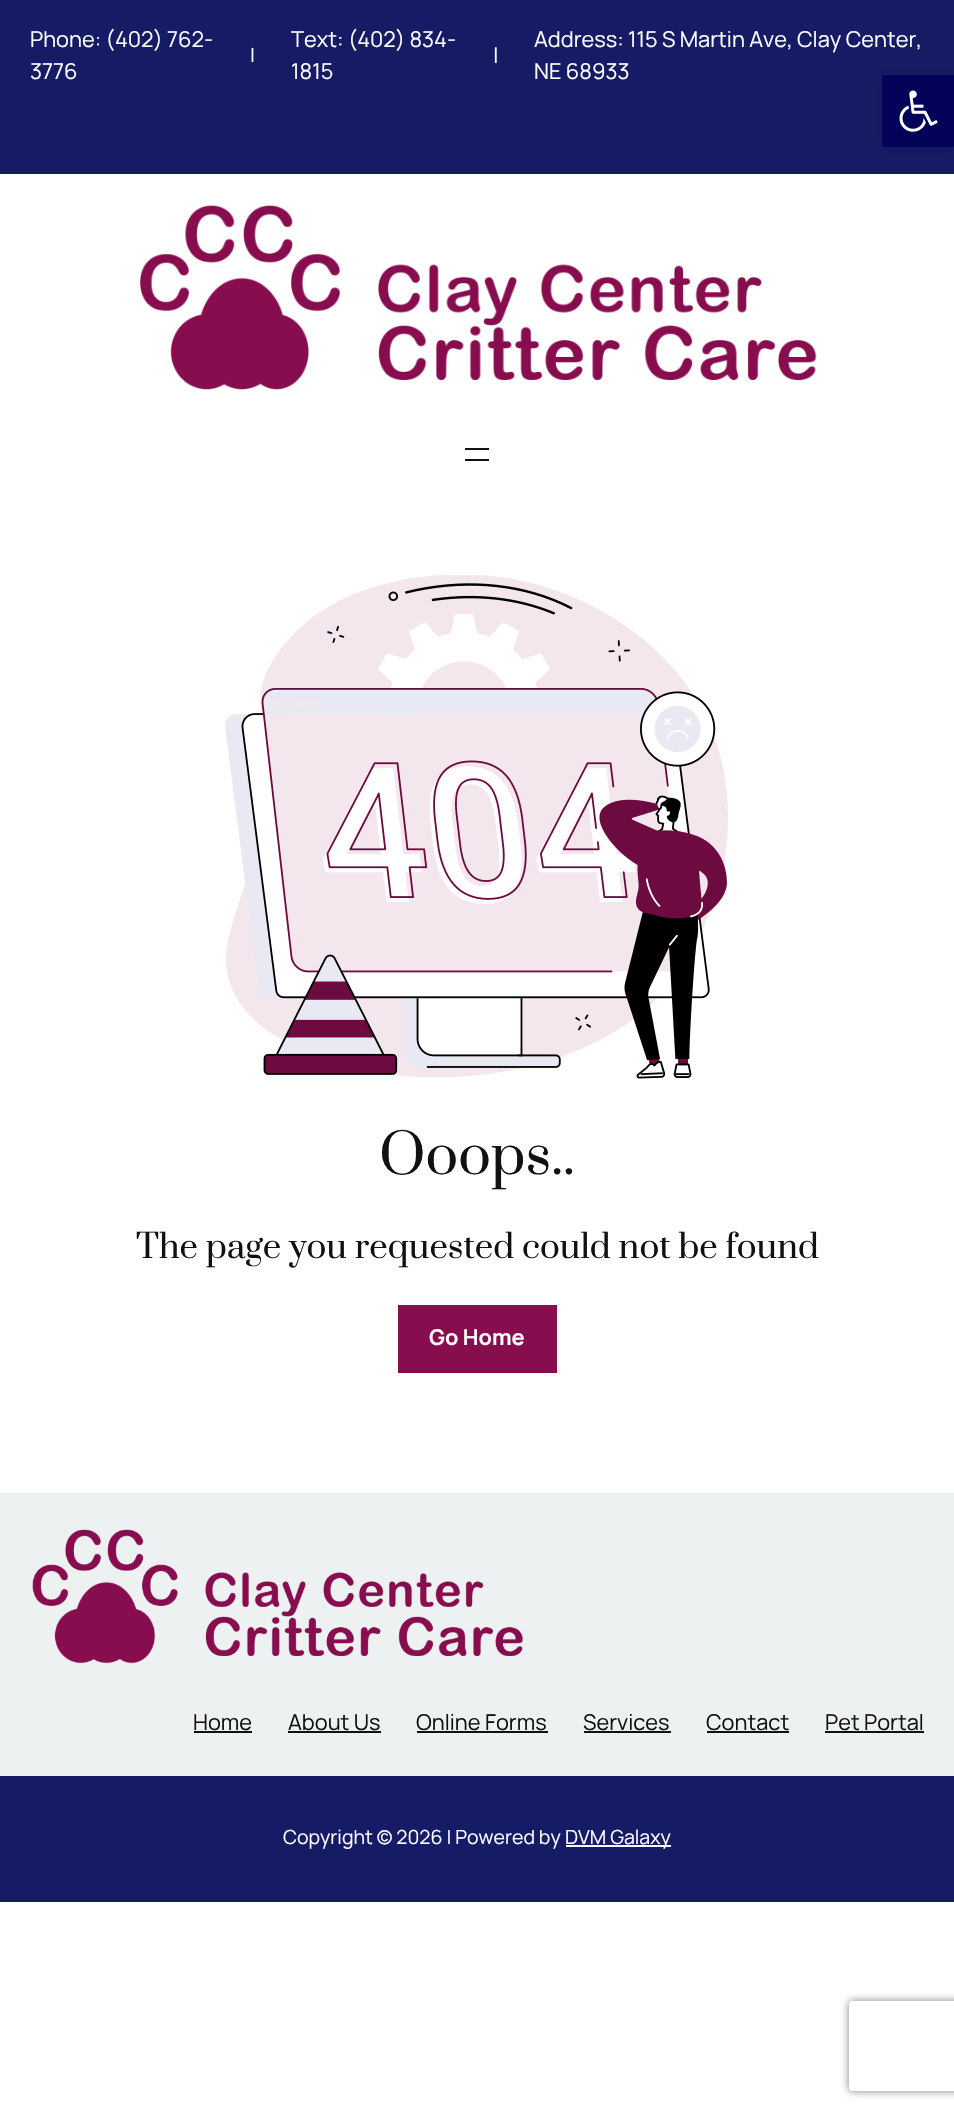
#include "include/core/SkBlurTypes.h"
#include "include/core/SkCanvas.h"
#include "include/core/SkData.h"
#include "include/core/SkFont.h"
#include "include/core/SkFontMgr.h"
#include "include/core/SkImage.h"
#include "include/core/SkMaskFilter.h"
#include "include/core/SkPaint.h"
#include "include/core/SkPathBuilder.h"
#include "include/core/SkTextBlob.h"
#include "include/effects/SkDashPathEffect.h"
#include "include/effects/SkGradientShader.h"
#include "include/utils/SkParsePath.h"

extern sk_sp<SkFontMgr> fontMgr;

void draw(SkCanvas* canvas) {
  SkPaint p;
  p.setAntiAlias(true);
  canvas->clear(SK_ColorWHITE);
  p.setColor(SkColorSetRGB(21, 28, 101));
  canvas->drawRect(SkRect::MakeLTRB(0, 0, 954, 174), p);
  canvas->drawImageRect(SkImages::DeferredFromEncodedData(SkData::MakeFromFileName("images/1.png")), SkRect::MakeLTRB(140, 205, 817, 390), SkSamplingOptions());
  p.setColor(SkColorSetRGB(17, 17, 17));
  canvas->drawRect(SkRect::MakeLTRB(465, 448, 489, 450), p);
  canvas->drawRect(SkRect::MakeLTRB(465, 459, 489, 461), p);
  canvas->drawImageRect(SkImages::DeferredFromEncodedData(SkData::MakeFromFileName("images/2.png")), SkRect::MakeLTRB(225, 575, 728, 1079), SkSamplingOptions());
  p.setColor(SkColorSetRGB(136, 13, 79));
  canvas->drawRect(SkRect::MakeLTRB(398, 1305, 557, 1373), p);
  p.setColor(SkColorSetRGB(237, 241, 242));
  canvas->drawRect(SkRect::MakeLTRB(0, 1493, 954, 1776), p);
  canvas->drawImageRect(SkImages::DeferredFromEncodedData(SkData::MakeFromFileName("images/3.png")), SkRect::MakeLTRB(32, 1529, 523, 1664), SkSamplingOptions());
  p.setColor(SkColorSetRGB(17, 17, 17));
  canvas->drawRect(SkRect::MakeLTRB(194, 1731, 252, 1733), p);
  canvas->drawRect(SkRect::MakeLTRB(288, 1731, 381, 1733), p);
  canvas->drawRect(SkRect::MakeLTRB(417, 1731, 548, 1733), p);
  canvas->drawRect(SkRect::MakeLTRB(584, 1731, 671, 1733), p);
  canvas->drawRect(SkRect::MakeLTRB(707, 1731, 789, 1733), p);
  canvas->drawRect(SkRect::MakeLTRB(825, 1731, 924, 1733), p);
  p.setColor(SkColorSetRGB(21, 28, 101));
  canvas->drawRect(SkRect::MakeLTRB(0, 1776, 954, 1902), p);
  p.setColor(SK_ColorWHITE);
  canvas->drawRect(SkRect::MakeLTRB(566, 1845, 671, 1847), p);
  p.setColor(SkColorSetARGB(26, 0, 0, 0));
  p.setMaskFilter(SkMaskFilter::MakeBlur(kNormal_SkBlurStyle, 7.5f));
  canvas->drawRect(SkRect::MakeLTRB(882, 75, 954, 147), p);
  p.setMaskFilter(nullptr);
  p.setColor(SkColorSetRGB(2, 2, 89));
  canvas->drawRect(SkRect::MakeLTRB(882, 75, 954, 147), p);
  canvas->drawImageRect(SkImages::DeferredFromEncodedData(SkData::MakeFromFileName("images/4.png")), SkRect::MakeLTRB(899, 90, 938, 132), SkSamplingOptions());
  canvas->save();
  canvas->clipPath(SkPathBuilder(SkPathFillType::kEvenOdd).moveTo(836, 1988).lineTo(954, 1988).lineTo(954, 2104).lineTo(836, 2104).close().moveTo(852, 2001).lineTo(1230, 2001).cubicTo(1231.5f, 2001, 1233, 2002.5f, 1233, 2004).lineTo(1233, 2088).cubicTo(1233, 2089.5f, 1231.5f, 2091, 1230, 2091).lineTo(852, 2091).cubicTo(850.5f, 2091, 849, 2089.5f, 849, 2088).lineTo(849, 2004).cubicTo(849, 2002.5f, 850.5f, 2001, 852, 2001).close().detach(), true);
  p.setColor(SkColorSetRGB(128, 128, 128));
  p.setMaskFilter(SkMaskFilter::MakeBlur(kNormal_SkBlurStyle, 4));
  canvas->drawRoundRect(SkRect::MakeLTRB(849, 2001, 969, 2091), 3, 3, p);
  p.setMaskFilter(nullptr);
  canvas->restore();
  SkFont font1(fontMgr->matchFamilyStyle("Manrope", SkFontStyle::Normal()), 21.8f);
  font1.setSubpixel(true);
  p.setColor(SK_ColorWHITE);
  canvas->drawString("Phone: (402) 762-", 30, 47, font1, p);
  canvas->drawString("3776", 30, 79, font1, p);
  SkFont font2(fontMgr->matchFamilyStyle("Manrope", SkFontStyle::Normal()), 19.5f);
  font2.setSubpixel(true);
  canvas->drawString("|", 250, 62, font2, p);
  canvas->drawString("Text: (402) 834-", 291, 47, font1, p);
  canvas->drawString("1815", 291, 79, font1, p);
  canvas->drawString("|", 493, 63, font1, p);
  canvas->drawString("Address: 115 S Martin Ave, Clay Center,", 534, 47, font1, p);
  canvas->drawString("NE 68933", 534, 79, font1, p);
  SkFont font3(fontMgr->matchFamilyStyle("Prata", SkFontStyle::Normal()), 54);
  font3.setSubpixel(true);
  p.setColor(SkColorSetRGB(17, 17, 17));
  canvas->drawString("Ooops..", 379, 1174, font3, p);
  SkFont font4(fontMgr->matchFamilyStyle("Prata", SkFontStyle::Normal()), 32.75f);
  font4.setSubpixel(true);
  canvas->drawString("The page you requested could not be found", 136, 1258, font4, p);
  SkFont font5(fontMgr->matchFamilyStyle("Manrope", SkFontStyle::Bold()), 21.8f);
  font5.setSubpixel(true);
  p.setColor(SK_ColorWHITE);
  canvas->drawString("Go Home", 429, 1345, font5, p);
  p.setColor(SkColorSetRGB(17, 17, 17));
  canvas->drawString("Home", 193, 1730, font1, p);
  canvas->drawString("About Us", 288, 1730, font1, p);
  canvas->drawString("Online Forms", 416, 1730, font1, p);
  canvas->drawString("Services", 583, 1730, font1, p);
  canvas->drawString("Contact", 706, 1730, font1, p);
  canvas->drawString("Pet Portal", 825, 1730, font1, p);
  p.setColor(SK_ColorWHITE);
  canvas->drawString("Copyright © 2026 | Powered by", 283, 1844, font2, p);
  canvas->drawString("DVM Galaxy", 565, 1844, font2, p);
}
